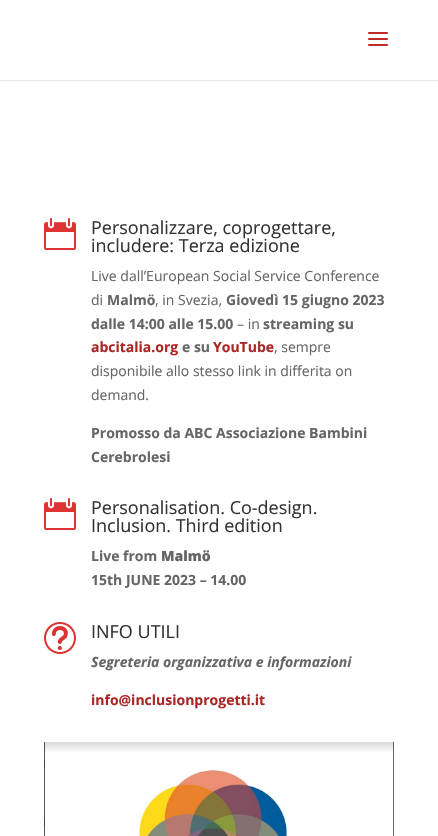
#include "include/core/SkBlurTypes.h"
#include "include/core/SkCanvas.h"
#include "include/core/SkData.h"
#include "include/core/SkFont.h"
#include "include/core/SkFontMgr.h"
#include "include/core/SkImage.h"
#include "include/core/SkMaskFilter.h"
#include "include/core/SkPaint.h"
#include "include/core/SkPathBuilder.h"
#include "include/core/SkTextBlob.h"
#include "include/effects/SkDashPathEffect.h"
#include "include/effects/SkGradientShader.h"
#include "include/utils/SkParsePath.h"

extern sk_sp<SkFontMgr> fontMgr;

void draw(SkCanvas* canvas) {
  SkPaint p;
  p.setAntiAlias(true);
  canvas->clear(SK_ColorWHITE);
  p.setColor(SkColorSetRGB(230, 230, 230));
  canvas->drawRect(SkRect::MakeLTRB(0, 80, 438, 81), p);
  canvas->drawImageRect(SkImages::DeferredFromEncodedData(SkData::MakeFromFileName("images/1.png")), SkRect::MakeLTRB(368, 32, 388, 46), SkSamplingOptions());
  canvas->drawImageRect(SkImages::DeferredFromEncodedData(SkData::MakeFromFileName("images/2.png")), SkRect::MakeLTRB(44, 218, 76, 250), SkSamplingOptions());
  canvas->drawImageRect(SkImages::DeferredFromEncodedData(SkData::MakeFromFileName("images/2.png")), SkRect::MakeLTRB(44, 498, 76, 530), SkSamplingOptions());
  canvas->drawImageRect(SkImages::DeferredFromEncodedData(SkData::MakeFromFileName("images/3.png")), SkRect::MakeLTRB(44, 622, 76, 654), SkSamplingOptions());
  canvas->drawImageRect(SkImages::DeferredFromEncodedData(SkData::MakeFromFileName("images/4.png")), SkRect::MakeLTRB(44, 742, 394, 836), SkSamplingOptions());
  SkFont font1(fontMgr->matchFamilyStyle("Open Sans", SkFontStyle::Normal()), 18);
  font1.setSubpixel(true);
  p.setColor(SkColorSetRGB(51, 51, 51));
  canvas->drawString("Personalizzare, coprogettare,", 91, 234, font1, p);
  canvas->drawString("includere: Terza edizione", 91, 252, font1, p);
  SkFont font2(fontMgr->matchFamilyStyle("Open Sans", SkFontStyle::Normal()), 14);
  font2.setSubpixel(true);
  p.setColor(SkColorSetRGB(102, 102, 102));
  canvas->drawString("Live dall’European Social Service Conference", 91, 281, font2, p);
  canvas->drawString("di", 91, 305, font2, p);
  SkFont font3(fontMgr->matchFamilyStyle("Open Sans", SkFontStyle::Bold()), 14);
  font3.setSubpixel(true);
  canvas->drawString("Malmö", 107, 305, font3, p);
  canvas->drawString(", in Svezia,", 155, 305, font2, p);
  canvas->drawString("Giovedì 15 giugno 2023", 226, 305, font3, p);
  canvas->drawString("dalle 14:00 alle 15.00", 91, 329, font3, p);
  canvas->drawString("– in", 237, 329, font2, p);
  canvas->drawString("streaming su", 263, 329, font3, p);
  p.setColor(SkColorSetRGB(170, 39, 39));
  canvas->drawString("abcitalia.org", 91, 352, font3, p);
  p.setColor(SkColorSetRGB(102, 102, 102));
  canvas->drawString("e su", 182, 352, font3, p);
  p.setColor(SkColorSetRGB(170, 39, 39));
  canvas->drawString("YouTube", 213, 352, font3, p);
  p.setColor(SkColorSetRGB(102, 102, 102));
  canvas->drawString(", sempre", 274, 352, font2, p);
  canvas->drawString("disponibile allo stesso link in differita on", 91, 376, font2, p);
  canvas->drawString("demand.", 91, 400, font2, p);
  canvas->drawString("Promosso da ABC Associazione Bambini", 91, 438, font3, p);
  canvas->drawString("Cerebrolesi", 91, 462, font3, p);
  p.setColor(SkColorSetRGB(51, 51, 51));
  canvas->drawString("Personalisation. Co-design.", 91, 514, font1, p);
  canvas->drawString("Inclusion. Third edition", 91, 532, font1, p);
  p.setColor(SkColorSetRGB(102, 102, 102));
  canvas->drawString("Live from", 91, 561, font3, p);
  SkFont font4(fontMgr->matchFamilyStyle("Open Sans", SkFontStyle(800, SkFontStyle::kNormal_Width, SkFontStyle::kUpright_Slant)), 14);
  font4.setSubpixel(true);
  canvas->drawString("Malmö", 161, 561, font4, p);
  canvas->drawString("15th JUNE 2023 – 14.00", 91, 585, font3, p);
  p.setColor(SkColorSetRGB(51, 51, 51));
  canvas->drawString("INFO UTILI", 91, 638, font1, p);
  SkFont font5(fontMgr->matchFamilyStyle("Open Sans", SkFontStyle::BoldItalic()), 14);
  font5.setSubpixel(true);
  p.setColor(SkColorSetRGB(102, 102, 102));
  canvas->drawString("Segreteria organizzativa e informazioni", 91, 667, font5, p);
  p.setColor(SkColorSetRGB(170, 39, 39));
  canvas->drawString("info@inclusionprogetti.it", 91, 705, font3, p);
}
